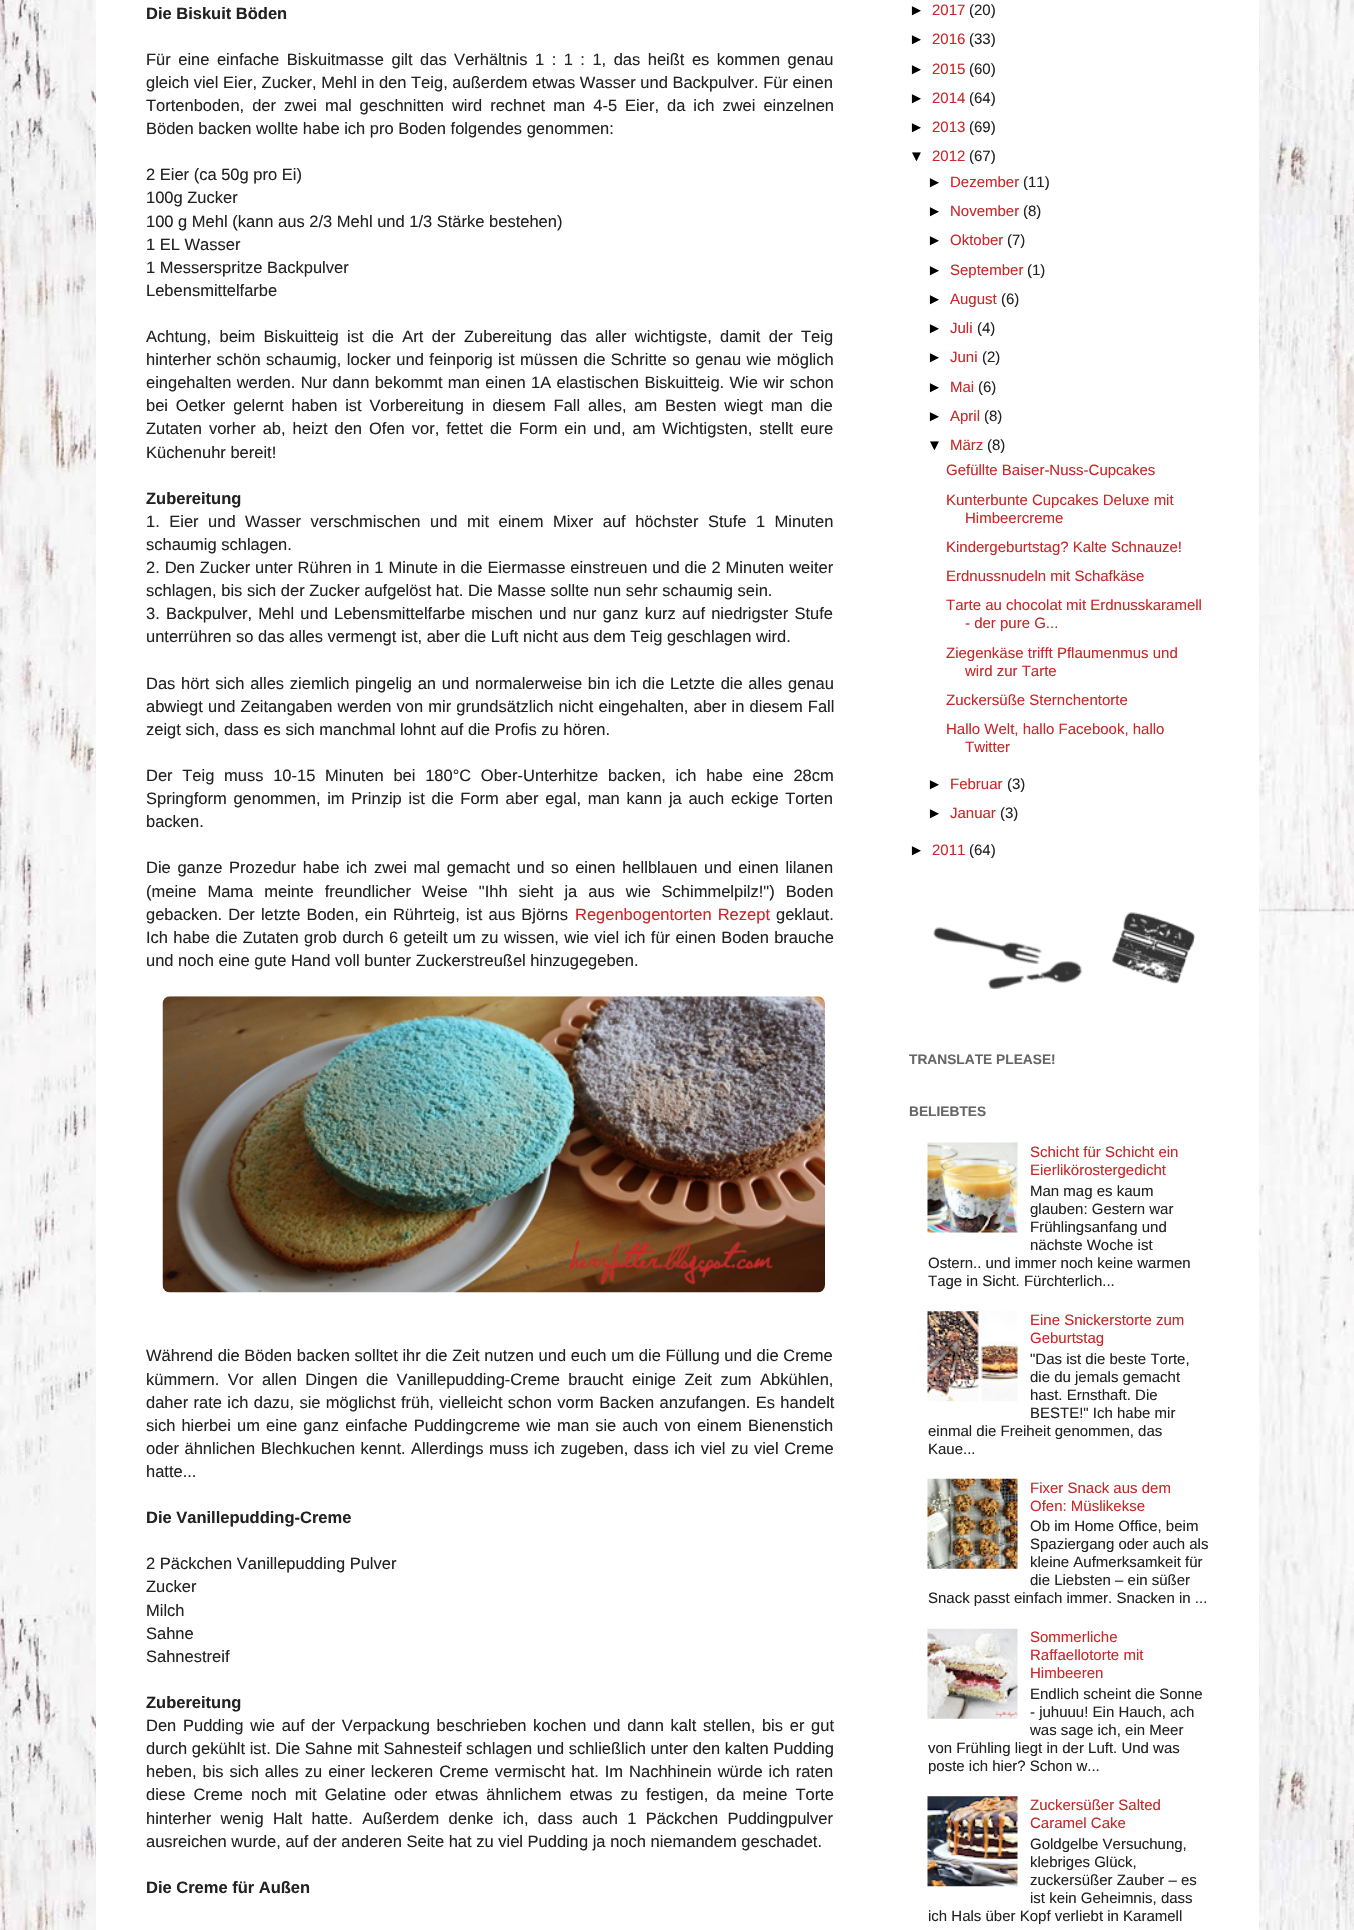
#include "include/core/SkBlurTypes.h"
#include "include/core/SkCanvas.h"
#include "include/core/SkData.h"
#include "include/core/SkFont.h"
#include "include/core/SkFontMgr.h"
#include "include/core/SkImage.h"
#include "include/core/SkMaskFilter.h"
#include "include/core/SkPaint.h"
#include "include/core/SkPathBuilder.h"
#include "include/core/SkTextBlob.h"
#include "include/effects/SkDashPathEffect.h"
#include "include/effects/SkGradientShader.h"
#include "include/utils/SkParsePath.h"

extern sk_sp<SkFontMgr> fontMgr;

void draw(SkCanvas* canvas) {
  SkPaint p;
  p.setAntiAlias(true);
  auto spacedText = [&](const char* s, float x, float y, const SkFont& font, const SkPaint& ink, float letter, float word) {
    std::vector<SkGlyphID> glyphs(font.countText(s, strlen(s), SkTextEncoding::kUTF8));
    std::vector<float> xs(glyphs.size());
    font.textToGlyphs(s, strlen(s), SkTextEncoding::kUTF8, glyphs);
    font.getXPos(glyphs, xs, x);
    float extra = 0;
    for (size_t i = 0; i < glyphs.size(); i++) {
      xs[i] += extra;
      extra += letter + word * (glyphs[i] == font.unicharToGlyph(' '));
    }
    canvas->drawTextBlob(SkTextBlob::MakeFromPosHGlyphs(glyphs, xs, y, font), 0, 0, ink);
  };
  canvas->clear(SK_ColorWHITE);
  canvas->drawImageRect(SkImages::DeferredFromEncodedData(SkData::MakeFromFileName("images/1.png")), SkRect::MakeLTRB(0, 0, 1354, 1930), SkSamplingOptions());
  p.setColor(SK_ColorWHITE);
  canvas->drawRect(SkRect::MakeLTRB(96, 0, 1259, 1930), p);
  canvas->drawImageRect(SkImages::DeferredFromEncodedData(SkData::MakeFromFileName("images/2.png")), SkRect::MakeLTRB(162, 996, 825, 1293), SkSamplingOptions());
  canvas->drawImageRect(SkImages::DeferredFromEncodedData(SkData::MakeFromFileName("images/3.png")), SkRect::MakeLTRB(933, 912, 1196, 990), SkSamplingOptions());
  canvas->drawImageRect(SkImages::DeferredFromEncodedData(SkData::MakeFromFileName("images/4.png")), SkRect::MakeLTRB(927, 1142, 1018, 1233), SkSamplingOptions());
  canvas->drawImageRect(SkImages::DeferredFromEncodedData(SkData::MakeFromFileName("images/5.png")), SkRect::MakeLTRB(927, 1311, 1018, 1402), SkSamplingOptions());
  canvas->drawImageRect(SkImages::DeferredFromEncodedData(SkData::MakeFromFileName("images/6.png")), SkRect::MakeLTRB(927, 1478, 1018, 1569), SkSamplingOptions());
  canvas->drawImageRect(SkImages::DeferredFromEncodedData(SkData::MakeFromFileName("images/7.png")), SkRect::MakeLTRB(927, 1628, 1018, 1719), SkSamplingOptions());
  canvas->drawImageRect(SkImages::DeferredFromEncodedData(SkData::MakeFromFileName("images/8.png")), SkRect::MakeLTRB(927, 1796, 1018, 1887), SkSamplingOptions());
  SkFont font1(fontMgr->matchFamilyStyle("Liberation Sans", SkFontStyle::Bold()), 16.5f);
  font1.setSubpixel(true);
  p.setColor(SkColorSetRGB(34, 34, 34));
  canvas->drawString("Die Biskuit Böden", 146, 19, font1, p);
  SkFont font2(fontMgr->matchFamilyStyle("Liberation Sans", SkFontStyle::Normal()), 16.5f);
  font2.setSubpixel(true);
  spacedText("Für eine einfache Biskuitmasse gilt das Verhältnis 1 : 1 : 1, das heißt es kommen genau", 146, 65, font2, p, 0, 2.9f);
  canvas->drawString("gleich viel Eier, Zucker, Mehl in den Teig, außerdem etwas Wasser und Backpulver. Für einen", 146, 88, font2, p);
  spacedText("Tortenboden, der zwei mal geschnitten wird rechnet man 4-5 Eier, da ich zwei einzelnen", 146, 111, font2, p, 0, 3.4f);
  canvas->drawString("Böden backen wollte habe ich pro Boden folgendes genommen:", 146, 134, font2, p);
  canvas->drawString("2 Eier (ca 50g pro Ei)", 146, 180, font2, p);
  canvas->drawString("100g Zucker", 146, 203, font2, p);
  canvas->drawString("100 g Mehl (kann aus 2/3 Mehl und 1/3 Stärke bestehen)", 146, 227, font2, p);
  canvas->drawString("1 EL Wasser", 146, 250, font2, p);
  canvas->drawString("1 Messerspritze Backpulver", 146, 273, font2, p);
  canvas->drawString("Lebensmittelfarbe", 146, 296, font2, p);
  spacedText("Achtung, beim Biskuitteig ist die Art der Zubereitung das aller wichtigste, damit der Teig", 146, 342, font2, p, 0, 3.75f);
  spacedText("hinterher schön schaumig, locker und feinporig ist müssen die Schritte so genau wie möglich", 146, 365, font2, p, 0, 0.9f);
  spacedText("eingehalten werden. Nur dann bekommt man einen 1A elastischen Biskuitteig. Wie wir schon", 146, 388, font2, p, 0, 0.75f);
  spacedText("bei Oetker gelernt haben ist Vorbereitung in diesem Fall alles, am Besten wiegt man die", 146, 411, font2, p, 0, 3.25f);
  spacedText("Zutaten vorher ab, heizt den Ofen vor, fettet die Form ein und, am Wichtigsten, stellt eure", 146, 434, font2, p, 0, 2.4f);
  canvas->drawString("Küchenuhr bereit!", 146, 458, font2, p);
  canvas->drawString("Zubereitung", 146, 504, font1, p);
  spacedText("1. Eier und Wasser verschmischen und mit einem Mixer auf höchster Stufe 1 Minuten", 146, 527, font2, p, 0, 4.9f);
  canvas->drawString("schaumig schlagen.", 146, 550, font2, p);
  spacedText("2. Den Zucker unter Rühren in 1 Minute in die Eiermasse einstreuen und die 2 Minuten weiter", 146, 573, font2, p, 0, 0.3f);
  canvas->drawString("schlagen, bis sich der Zucker aufgelöst hat. Die Masse sollte nun sehr schaumig sein.", 146, 596, font2, p);
  spacedText("3. Backpulver, Mehl und Lebensmittelfarbe mischen und nur ganz kurz auf niedrigster Stufe", 146, 619, font2, p, 0, 1.6f);
  canvas->drawString("unterrühren so das alles vermengt ist, aber die Luft nicht aus dem Teig geschlagen wird.", 146, 642, font2, p);
  spacedText("Das hört sich alles ziemlich pingelig an und normalerweise bin ich die Letzte die alles genau", 146, 689, font2, p, 0, 1.1f);
  spacedText("abwiegt und Zeitangaben werden von mir grundsätzlich nicht eingehalten, aber in diesem Fall", 146, 712, font2, p, 0, 0.5f);
  canvas->drawString("zeigt sich, dass es sich manchmal lohnt auf die Profis zu hören.", 146, 735, font2, p);
  spacedText("Der Teig muss 10-15 Minuten bei 180°C Ober-Unterhitze backen, ich habe eine 28cm", 146, 781, font2, p, 0, 5.1f);
  spacedText("Springform genommen, im Prinzip ist die Form aber egal, man kann ja auch eckige Torten", 146, 804, font2, p, 0, 2.1f);
  canvas->drawString("backen.", 146, 827, font2, p);
  spacedText("Die ganze Prozedur habe ich zwei mal gemacht und so einen hellblauen und einen lilanen", 146, 873, font2, p, 0, 2.1f);
  spacedText("(meine Mama meinte freundlicher Weise \"Ihh sieht ja aus wie Schimmelpilz!\") Boden", 146, 897, font2, p, 0, 6.4f);
  spacedText("gebacken. Der letzte Boden, ein Rührteig, ist aus Björns", 146, 920, font2, p, 0, 1.5f);
  p.setColor(SkColorSetRGB(200, 40, 40));
  spacedText("Regenbogentorten Rezept", 575, 920, font2, p, 0, 1.4f);
  p.setColor(SkColorSetRGB(34, 34, 34));
  canvas->drawString("geklaut.", 776, 920, font2, p);
  spacedText("Ich habe die Zutaten grob durch 6 geteilt um zu wissen, wie viel ich für einen Boden brauche", 146, 943, font2, p, 0, 0.75f);
  canvas->drawString("und noch eine gute Hand voll bunter Zuckerstreußel hinzugegeben.", 146, 966, font2, p);
  spacedText("Während die Böden backen solltet ihr die Zeit nutzen und euch um die Füllung und die Creme", 146, 1361, font2, p, 0, 0.1f);
  spacedText("kümmern. Vor allen Dingen die Vanillepudding-Creme braucht einige Zeit zum Abkühlen,", 146, 1385, font2, p, 0, 3.9f);
  spacedText("daher rate ich dazu, sie möglichst früh, vielleicht schon vorm Backen anzufangen. Es handelt", 146, 1408, font2, p, 0, 0.75f);
  spacedText("sich hierbei um eine ganz einfache Puddingcreme wie man sie auch von einem Bienenstich", 146, 1431, font2, p, 0, 1.5f);
  spacedText("oder ähnlichen Blechkuchen kennt. Allerdings muss ich zugeben, dass ich viel zu viel Creme", 146, 1454, font2, p, 0, 0.9f);
  canvas->drawString("hatte...", 146, 1477, font2, p);
  canvas->drawString("Die Vanillepudding-Creme", 146, 1523, font1, p);
  canvas->drawString("2 Päckchen Vanillepudding Pulver", 146, 1569, font2, p);
  canvas->drawString("Zucker", 146, 1592, font2, p);
  canvas->drawString("Milch", 146, 1616, font2, p);
  canvas->drawString("Sahne", 146, 1639, font2, p);
  canvas->drawString("Sahnestreif", 146, 1662, font2, p);
  canvas->drawString("Zubereitung", 146, 1708, font1, p);
  spacedText("Den Pudding wie auf der Verpackung beschrieben kochen und dann kalt stellen, bis er gut", 146, 1731, font2, p, 0, 2.1f);
  canvas->drawString("durch gekühlt ist. Die Sahne mit Sahnesteif schlagen und schließlich unter den kalten Pudding", 146, 1754, font2, p);
  spacedText("heben, bis sich alles zu einer leckeren Creme vermischt hat. Im Nachhinein würde ich raten", 146, 1777, font2, p, 0, 1.4f);
  spacedText("diese Creme noch mit Gelatine oder etwas ähnlichem etwas zu festigen, da meine Torte", 146, 1800, font2, p, 0, 3.4f);
  spacedText("hinterher wenig Halt hatte. Außerdem denke ich, dass auch 1 Päckchen Puddingpulver", 146, 1824, font2, p, 0, 4.75f);
  canvas->drawString("ausreichen wurde, auf der anderen Seite hat zu viel Pudding ja noch niemandem geschadet.", 146, 1847, font2, p);
  canvas->drawString("Die Creme für Außen", 146, 1893, font1, p);
  SkFont font3(fontMgr->matchFamilyStyle("Liberation Sans", SkFontStyle::Normal()), 15);
  font3.setSubpixel(true);
  p.setColor(SK_ColorBLACK);
  canvas->drawString("►", 909, 15, font3, p);
  p.setColor(SkColorSetRGB(200, 40, 40));
  canvas->drawString("2017", 932, 15, font3, p);
  p.setColor(SkColorSetRGB(34, 34, 34));
  canvas->drawString("(20)", 969, 15, font3, p);
  p.setColor(SK_ColorBLACK);
  canvas->drawString("►", 909, 44, font3, p);
  p.setColor(SkColorSetRGB(200, 40, 40));
  canvas->drawString("2016", 932, 44, font3, p);
  p.setColor(SkColorSetRGB(34, 34, 34));
  canvas->drawString("(33)", 969, 44, font3, p);
  p.setColor(SK_ColorBLACK);
  canvas->drawString("►", 909, 74, font3, p);
  p.setColor(SkColorSetRGB(200, 40, 40));
  canvas->drawString("2015", 932, 74, font3, p);
  p.setColor(SkColorSetRGB(34, 34, 34));
  canvas->drawString("(60)", 969, 74, font3, p);
  p.setColor(SK_ColorBLACK);
  canvas->drawString("►", 909, 103, font3, p);
  p.setColor(SkColorSetRGB(200, 40, 40));
  canvas->drawString("2014", 932, 103, font3, p);
  p.setColor(SkColorSetRGB(34, 34, 34));
  canvas->drawString("(64)", 969, 103, font3, p);
  p.setColor(SK_ColorBLACK);
  canvas->drawString("►", 909, 132, font3, p);
  p.setColor(SkColorSetRGB(200, 40, 40));
  canvas->drawString("2013", 932, 132, font3, p);
  p.setColor(SkColorSetRGB(34, 34, 34));
  canvas->drawString("(69)", 969, 132, font3, p);
  p.setColor(SK_ColorBLACK);
  canvas->drawString("▼", 909, 161, font3, p);
  p.setColor(SkColorSetRGB(200, 40, 40));
  canvas->drawString("2012", 932, 161, font3, p);
  p.setColor(SkColorSetRGB(34, 34, 34));
  canvas->drawString("(67)", 969, 161, font3, p);
  p.setColor(SK_ColorBLACK);
  canvas->drawString("►", 927, 187, font3, p);
  p.setColor(SkColorSetRGB(200, 40, 40));
  canvas->drawString("Dezember", 950, 187, font3, p);
  p.setColor(SkColorSetRGB(34, 34, 34));
  canvas->drawString("(11)", 1023, 187, font3, p);
  p.setColor(SK_ColorBLACK);
  canvas->drawString("►", 927, 216, font3, p);
  p.setColor(SkColorSetRGB(200, 40, 40));
  canvas->drawString("November", 950, 216, font3, p);
  p.setColor(SkColorSetRGB(34, 34, 34));
  canvas->drawString("(8)", 1023, 216, font3, p);
  p.setColor(SK_ColorBLACK);
  canvas->drawString("►", 927, 245, font3, p);
  p.setColor(SkColorSetRGB(200, 40, 40));
  canvas->drawString("Oktober", 950, 245, font3, p);
  p.setColor(SkColorSetRGB(34, 34, 34));
  canvas->drawString("(7)", 1007, 245, font3, p);
  p.setColor(SK_ColorBLACK);
  canvas->drawString("►", 927, 275, font3, p);
  p.setColor(SkColorSetRGB(200, 40, 40));
  canvas->drawString("September", 950, 275, font3, p);
  p.setColor(SkColorSetRGB(34, 34, 34));
  canvas->drawString("(1)", 1027, 275, font3, p);
  p.setColor(SK_ColorBLACK);
  canvas->drawString("►", 927, 304, font3, p);
  p.setColor(SkColorSetRGB(200, 40, 40));
  canvas->drawString("August", 950, 304, font3, p);
  p.setColor(SkColorSetRGB(34, 34, 34));
  canvas->drawString("(6)", 1001, 304, font3, p);
  p.setColor(SK_ColorBLACK);
  canvas->drawString("►", 927, 333, font3, p);
  p.setColor(SkColorSetRGB(200, 40, 40));
  canvas->drawString("Juli", 950, 333, font3, p);
  p.setColor(SkColorSetRGB(34, 34, 34));
  canvas->drawString("(4)", 977, 333, font3, p);
  p.setColor(SK_ColorBLACK);
  canvas->drawString("►", 927, 362, font3, p);
  p.setColor(SkColorSetRGB(200, 40, 40));
  canvas->drawString("Juni", 950, 362, font3, p);
  p.setColor(SkColorSetRGB(34, 34, 34));
  canvas->drawString("(2)", 982, 362, font3, p);
  p.setColor(SK_ColorBLACK);
  canvas->drawString("►", 927, 392, font3, p);
  p.setColor(SkColorSetRGB(200, 40, 40));
  canvas->drawString("Mai", 950, 392, font3, p);
  p.setColor(SkColorSetRGB(34, 34, 34));
  canvas->drawString("(6)", 978, 392, font3, p);
  p.setColor(SK_ColorBLACK);
  canvas->drawString("►", 927, 421, font3, p);
  p.setColor(SkColorSetRGB(200, 40, 40));
  canvas->drawString("April", 950, 421, font3, p);
  p.setColor(SkColorSetRGB(34, 34, 34));
  canvas->drawString("(8)", 984, 421, font3, p);
  p.setColor(SK_ColorBLACK);
  canvas->drawString("▼", 927, 450, font3, p);
  p.setColor(SkColorSetRGB(200, 40, 40));
  canvas->drawString("März", 950, 450, font3, p);
  p.setColor(SkColorSetRGB(34, 34, 34));
  canvas->drawString("(8)", 987, 450, font3, p);
  p.setColor(SkColorSetRGB(200, 40, 40));
  canvas->drawString("Gefüllte Baiser-Nuss-Cupcakes", 946, 475, font3, p);
  canvas->drawString("Kunterbunte Cupcakes Deluxe mit", 946, 505, font3, p);
  canvas->drawString("Himbeercreme", 965, 523, font3, p);
  canvas->drawString("Kindergeburtstag? Kalte Schnauze!", 946, 552, font3, p);
  canvas->drawString("Erdnussnudeln mit Schafkäse", 946, 581, font3, p);
  canvas->drawString("Tarte au chocolat mit Erdnusskaramell", 946, 610, font3, p);
  canvas->drawString("- der pure G...", 965, 628, font3, p);
  canvas->drawString("Ziegenkäse trifft Pflaumenmus und", 946, 658, font3, p);
  canvas->drawString("wird zur Tarte", 965, 676, font3, p);
  canvas->drawString("Zuckersüße Sternchentorte", 946, 705, font3, p);
  canvas->drawString("Hallo Welt, hallo Facebook, hallo", 946, 734, font3, p);
  canvas->drawString("Twitter", 965, 752, font3, p);
  p.setColor(SK_ColorBLACK);
  canvas->drawString("►", 927, 789, font3, p);
  p.setColor(SkColorSetRGB(200, 40, 40));
  canvas->drawString("Februar", 950, 789, font3, p);
  p.setColor(SkColorSetRGB(34, 34, 34));
  canvas->drawString("(3)", 1007, 789, font3, p);
  p.setColor(SK_ColorBLACK);
  canvas->drawString("►", 927, 818, font3, p);
  p.setColor(SkColorSetRGB(200, 40, 40));
  canvas->drawString("Januar", 950, 818, font3, p);
  p.setColor(SkColorSetRGB(34, 34, 34));
  canvas->drawString("(3)", 1000, 818, font3, p);
  p.setColor(SK_ColorBLACK);
  canvas->drawString("►", 909, 855, font3, p);
  p.setColor(SkColorSetRGB(200, 40, 40));
  canvas->drawString("2011", 932, 855, font3, p);
  p.setColor(SkColorSetRGB(34, 34, 34));
  canvas->drawString("(64)", 969, 855, font3, p);
  SkFont font4(fontMgr->matchFamilyStyle("Liberation Sans", SkFontStyle::Bold()), 13.75f);
  font4.setSubpixel(true);
  p.setColor(SkColorSetRGB(102, 102, 102));
  canvas->drawString("TRANSLATE PLEASE!", 909, 1064, font4, p);
  canvas->drawString("BELIEBTES", 909, 1116, font4, p);
  p.setColor(SkColorSetRGB(200, 40, 40));
  canvas->drawString("Schicht für Schicht ein", 1030, 1157, font3, p);
  canvas->drawString("Eierlikörostergedicht", 1030, 1175, font3, p);
  p.setColor(SkColorSetRGB(34, 34, 34));
  canvas->drawString("Man mag es kaum", 1030, 1196, font3, p);
  canvas->drawString("glauben: Gestern war", 1030, 1214, font3, p);
  canvas->drawString("Frühlingsanfang und", 1030, 1232, font3, p);
  canvas->drawString("nächste Woche ist", 1030, 1250, font3, p);
  canvas->drawString("Ostern.. und immer noch keine warmen", 928, 1268, font3, p);
  canvas->drawString("Tage in Sicht. Fürchterlich...", 928, 1286, font3, p);
  p.setColor(SkColorSetRGB(200, 40, 40));
  canvas->drawString("Eine Snickerstorte zum", 1030, 1325, font3, p);
  canvas->drawString("Geburtstag", 1030, 1343, font3, p);
  p.setColor(SkColorSetRGB(34, 34, 34));
  canvas->drawString("\"Das ist die beste Torte,", 1030, 1364, font3, p);
  canvas->drawString("die du jemals gemacht", 1030, 1382, font3, p);
  canvas->drawString("hast. Ernsthaft. Die", 1030, 1400, font3, p);
  canvas->drawString("BESTE!\" Ich habe mir", 1030, 1418, font3, p);
  canvas->drawString("einmal die Freiheit genommen, das", 928, 1436, font3, p);
  canvas->drawString("Kaue...", 928, 1454, font3, p);
  p.setColor(SkColorSetRGB(200, 40, 40));
  canvas->drawString("Fixer Snack aus dem", 1030, 1493, font3, p);
  canvas->drawString("Ofen: Müslikekse", 1030, 1511, font3, p);
  p.setColor(SkColorSetRGB(34, 34, 34));
  canvas->drawString("Ob im Home Office, beim", 1030, 1531, font3, p);
  canvas->drawString("Spaziergang oder auch als", 1030, 1549, font3, p);
  canvas->drawString("kleine Aufmerksamkeit für", 1030, 1567, font3, p);
  canvas->drawString("die Liebsten – ein süßer", 1030, 1585, font3, p);
  canvas->drawString("Snack passt einfach immer. Snacken in ...", 928, 1603, font3, p);
  p.setColor(SkColorSetRGB(200, 40, 40));
  canvas->drawString("Sommerliche", 1030, 1642, font3, p);
  canvas->drawString("Raffaellotorte mit", 1030, 1660, font3, p);
  canvas->drawString("Himbeeren", 1030, 1678, font3, p);
  p.setColor(SkColorSetRGB(34, 34, 34));
  canvas->drawString("Endlich scheint die Sonne", 1030, 1699, font3, p);
  canvas->drawString("- juhuuu! Ein Hauch, ach", 1030, 1717, font3, p);
  canvas->drawString("was sage ich, ein Meer", 1030, 1735, font3, p);
  canvas->drawString("von Frühling liegt in der Luft. Und was", 928, 1753, font3, p);
  canvas->drawString("poste ich hier? Schon w...", 928, 1771, font3, p);
  p.setColor(SkColorSetRGB(200, 40, 40));
  canvas->drawString("Zuckersüßer Salted", 1030, 1810, font3, p);
  canvas->drawString("Caramel Cake", 1030, 1828, font3, p);
  p.setColor(SkColorSetRGB(34, 34, 34));
  canvas->drawString("Goldgelbe Versuchung,", 1030, 1849, font3, p);
  canvas->drawString("klebriges Glück,", 1030, 1867, font3, p);
  canvas->drawString("zuckersüßer Zauber – es", 1030, 1885, font3, p);
  canvas->drawString("ist kein Geheimnis, dass", 1030, 1903, font3, p);
  canvas->drawString("ich Hals über Kopf verliebt in Karamell", 928, 1921, font3, p);
}
